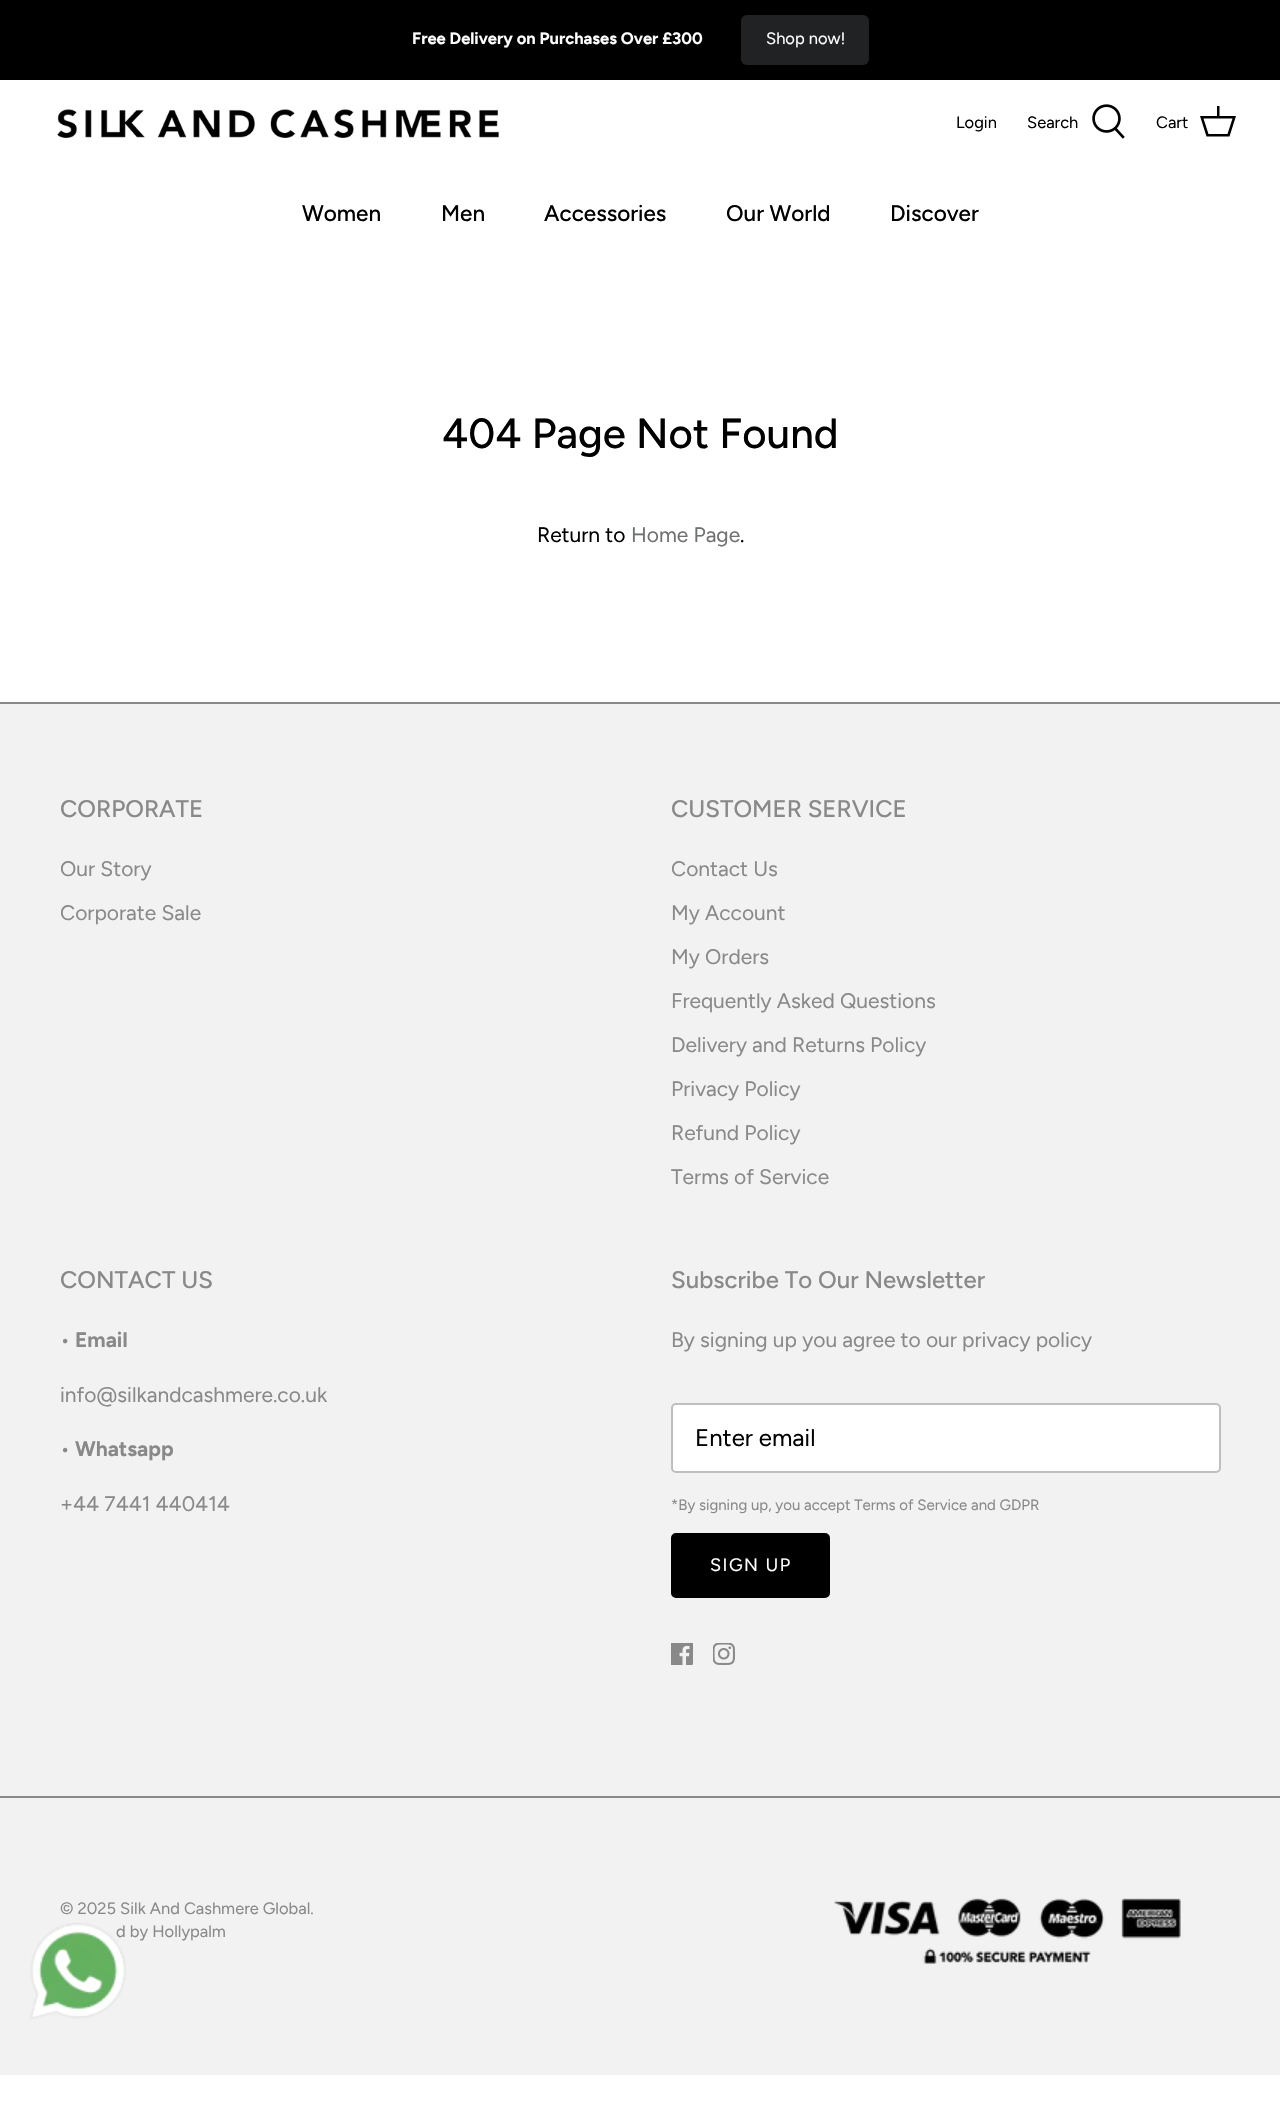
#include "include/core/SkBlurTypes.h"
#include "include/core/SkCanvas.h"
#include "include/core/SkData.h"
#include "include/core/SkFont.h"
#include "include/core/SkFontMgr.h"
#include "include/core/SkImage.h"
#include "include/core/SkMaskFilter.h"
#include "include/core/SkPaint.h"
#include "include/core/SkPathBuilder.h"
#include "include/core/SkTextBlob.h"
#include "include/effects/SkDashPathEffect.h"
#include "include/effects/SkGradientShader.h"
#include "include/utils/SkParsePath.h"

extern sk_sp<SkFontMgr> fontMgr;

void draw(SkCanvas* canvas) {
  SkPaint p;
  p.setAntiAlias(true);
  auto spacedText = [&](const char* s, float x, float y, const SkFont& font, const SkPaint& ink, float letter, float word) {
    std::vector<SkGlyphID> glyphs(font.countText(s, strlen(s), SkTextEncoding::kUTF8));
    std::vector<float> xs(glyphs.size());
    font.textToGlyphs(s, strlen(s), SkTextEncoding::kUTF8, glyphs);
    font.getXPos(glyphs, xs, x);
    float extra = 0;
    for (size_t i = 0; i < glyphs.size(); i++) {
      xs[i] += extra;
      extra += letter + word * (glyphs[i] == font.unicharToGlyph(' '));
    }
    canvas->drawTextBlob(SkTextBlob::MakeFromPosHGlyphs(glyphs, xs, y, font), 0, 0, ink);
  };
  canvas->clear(SK_ColorWHITE);
  p.setColor(SK_ColorBLACK);
  canvas->drawRect(SkRect::MakeLTRB(0, 0, 1280, 80), p);
  p.setColor(SkColorSetRGB(32, 34, 35));
  canvas->drawRoundRect(SkRect::MakeLTRB(741, 15, 869, 65), 6, 6, p);
  canvas->drawImageRect(SkImages::DeferredFromEncodedData(SkData::MakeFromFileName("images/1.png")), SkRect::MakeLTRB(57, 109, 499, 138), SkSamplingOptions());
  canvas->drawImageRect(SkImages::DeferredFromEncodedData(SkData::MakeFromFileName("images/2.png")), SkRect::MakeLTRB(1092, 104, 1125, 139), SkSamplingOptions());
  p.setColor(SK_ColorBLACK);
  canvas->drawPath(SkPathBuilder().moveTo(1217, 116).lineTo(1217, 106).lineTo(1219.5f, 106).lineTo(1219.5f, 116).lineTo(1236, 116).lineTo(1229.5f, 136.5f).lineTo(1206.5f, 136.5f).lineTo(1200, 116).close().moveTo(1203.5f, 118.5f).lineTo(1208.5f, 134).lineTo(1227.5f, 134).lineTo(1232.5f, 118.5f).close().detach(), p);
  p.setColor(SkColorSetRGB(242, 242, 242));
  canvas->drawRect(SkRect::MakeLTRB(0, 704, 1280, 2075), p);
  p.setColor(SkColorSetRGB(138, 137, 137));
  canvas->drawRect(SkRect::MakeLTRB(0, 702, 1280, 704), p);
  p.setColor(SK_ColorWHITE);
  canvas->drawRoundRect(SkRect::MakeLTRB(672, 1404, 1220, 1472), 4, 4, p);
  p.setStyle(SkPaint::kStroke_Style);
  p.setStrokeWidth(2);
  p.setColor(SkColorSetRGB(191, 191, 191));
  canvas->drawRoundRect(SkRect::MakeLTRB(672, 1404, 1220, 1472), 4, 4, p);
  p.setStyle(SkPaint::kFill_Style);
  p.setColor(SK_ColorBLACK);
  canvas->drawRoundRect(SkRect::MakeLTRB(672, 1534, 829, 1597), 4, 4, p);
  p.setStyle(SkPaint::kStroke_Style);
  canvas->drawRoundRect(SkRect::MakeLTRB(672, 1534, 829, 1597), 4, 4, p);
  canvas->drawImageRect(SkImages::DeferredFromEncodedData(SkData::MakeFromFileName("images/3.png")), SkRect::MakeLTRB(671, 1643, 693, 1665), SkSamplingOptions());
  canvas->drawImageRect(SkImages::DeferredFromEncodedData(SkData::MakeFromFileName("images/4.png")), SkRect::MakeLTRB(713, 1643, 735, 1665), SkSamplingOptions());
  p.setStyle(SkPaint::kFill_Style);
  p.setColor(SkColorSetRGB(138, 137, 137));
  canvas->drawRect(SkRect::MakeLTRB(0, 1796, 1280, 1798), p);
  canvas->drawImageRect(SkImages::DeferredFromEncodedData(SkData::MakeFromFileName("images/5.png")), SkRect::MakeLTRB(834, 1898, 1181, 1964), SkSamplingOptions());
  SkFont font1(fontMgr->matchFamilyStyle("Figtree", SkFontStyle::Bold()), 16.5f);
  font1.setSubpixel(true);
  p.setColor(SK_ColorWHITE);
  canvas->drawString("Free Delivery on Purchases Over £300", 412, 44, font1, p);
  SkFont font2(fontMgr->matchFamilyStyle("Figtree", SkFontStyle::Normal()), 16.5f);
  font2.setSubpixel(true);
  canvas->drawString("Shop now!", 766, 44, font2, p);
  p.setColor(SK_ColorBLACK);
  canvas->drawString("Login", 956, 128, font2, p);
  canvas->drawString("Search", 1027, 128, font2, p);
  canvas->drawString("Cart", 1156, 128, font2, p);
  SkFont font3(fontMgr->matchFamilyStyle("Figtree", SkFontStyle(500, SkFontStyle::kNormal_Width, SkFontStyle::kUpright_Slant)), 22.5f);
  font3.setSubpixel(true);
  canvas->drawString("Women", 302, 221, font3, p);
  canvas->drawString("Men", 441, 221, font3, p);
  canvas->drawString("Accessories", 544, 221, font3, p);
  canvas->drawString("Our World", 726, 221, font3, p);
  canvas->drawString("Discover", 890, 221, font3, p);
  SkFont font4(fontMgr->matchFamilyStyle("Figtree", SkFontStyle(500, SkFontStyle::kNormal_Width, SkFontStyle::kUpright_Slant)), 42);
  font4.setSubpixel(true);
  canvas->drawString("404 Page Not Found", 442, 448, font4, p);
  SkFont font5(fontMgr->matchFamilyStyle("Figtree", SkFontStyle::Normal()), 21);
  font5.setSubpixel(true);
  canvas->drawString("Return to", 537, 542, font5, p);
  p.setColor(SkColorSetRGB(112, 113, 115));
  canvas->drawString("Home Page", 631, 542, font5, p);
  p.setColor(SK_ColorBLACK);
  canvas->drawString(".", 740, 542, font5, p);
  SkFont font6(fontMgr->matchFamilyStyle("Figtree", SkFontStyle(500, SkFontStyle::kNormal_Width, SkFontStyle::kUpright_Slant)), 24);
  font6.setSubpixel(true);
  p.setColor(SkColorSetRGB(138, 137, 137));
  canvas->drawString("CORPORATE", 60, 817, font6, p);
  canvas->drawString("Our Story", 60, 876, font5, p);
  canvas->drawString("Corporate Sale", 60, 920, font5, p);
  canvas->drawString("CUSTOMER SERVICE", 671, 817, font6, p);
  canvas->drawString("Contact Us", 671, 876, font5, p);
  canvas->drawString("My Account", 671, 920, font5, p);
  canvas->drawString("My Orders", 671, 964, font5, p);
  canvas->drawString("Frequently Asked Questions", 671, 1008, font5, p);
  canvas->drawString("Delivery and Returns Policy", 671, 1052, font5, p);
  canvas->drawString("Privacy Policy", 671, 1096, font5, p);
  canvas->drawString("Refund Policy", 671, 1140, font5, p);
  canvas->drawString("Terms of Service", 671, 1184, font5, p);
  canvas->drawString("CONTACT US", 60, 1288, font6, p);
  canvas->drawString("•", 60, 1347, font5, p);
  SkFont font7(fontMgr->matchFamilyStyle("Figtree", SkFontStyle::Bold()), 21);
  font7.setSubpixel(true);
  canvas->drawString("Email", 75, 1347, font7, p);
  canvas->drawString("info@silkandcashmere.co.uk", 60, 1402, font5, p);
  canvas->drawString("•", 60, 1456, font5, p);
  canvas->drawString("Whatsapp", 75, 1456, font7, p);
  canvas->drawString("+44 7441 440414", 60, 1511, font5, p);
  canvas->drawString("Subscribe To Our Newsletter", 671, 1288, font6, p);
  canvas->drawString("By signing up you agree to our privacy policy", 671, 1347, font5, p);
  SkFont font8(fontMgr->matchFamilyStyle("Figtree", SkFontStyle::Normal()), 24);
  font8.setSubpixel(true);
  p.setColor(SK_ColorBLACK);
  canvas->drawString("Enter email", 695, 1446, font8, p);
  SkFont font9(fontMgr->matchFamilyStyle("Figtree", SkFontStyle::Normal()), 15);
  font9.setSubpixel(true);
  p.setColor(SkColorSetRGB(138, 137, 137));
  canvas->drawString("*By signing up, you accept Terms of Service and GDPR", 671, 1510, font9, p);
  SkFont font10(fontMgr->matchFamilyStyle("Figtree", SkFontStyle::Normal()), 18);
  font10.setSubpixel(true);
  p.setColor(SK_ColorWHITE);
  spacedText("SIGN UP", 710, 1571, font10, p, 1.5f, 0);
  p.setColor(SkColorSetRGB(138, 137, 137));
  canvas->drawString("© 2025 Silk And Cashmere Global.", 60, 1914, font2, p);
  canvas->drawString("d by Hollypalm", 116, 1937, font2, p);
  canvas->drawImageRect(SkImages::DeferredFromEncodedData(SkData::MakeFromFileName("images/6.png")), SkRect::MakeLTRB(30, 1923, 126, 2019), SkSamplingOptions());
}
